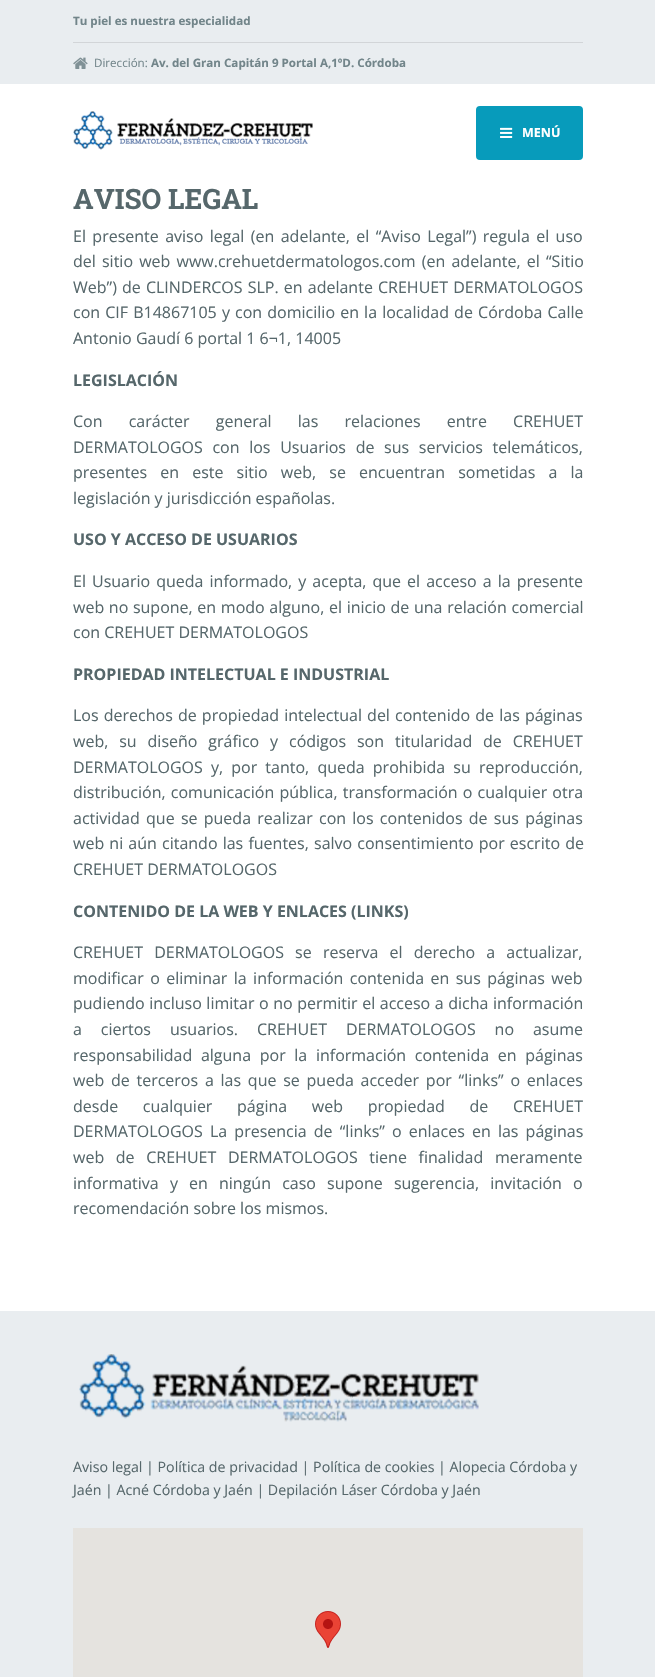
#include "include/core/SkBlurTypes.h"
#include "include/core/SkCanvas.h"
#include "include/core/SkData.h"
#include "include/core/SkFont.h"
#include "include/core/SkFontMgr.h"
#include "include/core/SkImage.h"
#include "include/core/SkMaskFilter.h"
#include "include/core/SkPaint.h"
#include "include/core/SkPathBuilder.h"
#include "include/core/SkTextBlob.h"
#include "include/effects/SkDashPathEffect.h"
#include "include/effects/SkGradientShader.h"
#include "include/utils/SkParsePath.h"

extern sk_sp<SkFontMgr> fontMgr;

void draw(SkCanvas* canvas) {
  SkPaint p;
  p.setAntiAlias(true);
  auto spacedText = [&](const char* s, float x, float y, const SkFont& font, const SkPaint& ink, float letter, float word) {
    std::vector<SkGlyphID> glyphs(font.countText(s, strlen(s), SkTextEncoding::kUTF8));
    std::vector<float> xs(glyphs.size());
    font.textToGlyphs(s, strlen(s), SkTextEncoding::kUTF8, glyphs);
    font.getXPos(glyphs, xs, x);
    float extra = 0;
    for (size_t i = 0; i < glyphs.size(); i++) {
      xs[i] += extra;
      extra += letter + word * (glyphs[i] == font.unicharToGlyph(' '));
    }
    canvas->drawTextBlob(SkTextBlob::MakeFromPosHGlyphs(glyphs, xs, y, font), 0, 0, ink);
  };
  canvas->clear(SK_ColorWHITE);
  p.setColor(SkColorSetRGB(233, 237, 240));
  canvas->drawRect(SkRect::MakeLTRB(0, 0, 655, 84), p);
  p.setColor(SkColorSetRGB(210, 213, 216));
  canvas->drawRect(SkRect::MakeLTRB(73, 42, 583, 43), p);
  canvas->drawImageRect(SkImages::DeferredFromEncodedData(SkData::MakeFromFileName("images/1.png")), SkRect::MakeLTRB(73, 57, 88, 69), SkSamplingOptions());
  canvas->drawImageRect(SkImages::DeferredFromEncodedData(SkData::MakeFromFileName("images/2.png")), SkRect::MakeLTRB(73, 111, 313, 150), SkSamplingOptions());
  p.setColor(SkColorSetRGB(7, 155, 187));
  canvas->drawRoundRect(SkRect::MakeLTRB(477, 107, 582, 159), 3, 3, p);
  p.setStyle(SkPaint::kStroke_Style);
  p.setStrokeWidth(2);
  canvas->drawRoundRect(SkRect::MakeLTRB(477, 107, 582, 159), 3, 3, p);
  canvas->drawImageRect(SkImages::DeferredFromEncodedData(SkData::MakeFromFileName("images/3.png")), SkRect::MakeLTRB(500, 127, 513, 138), SkSamplingOptions());
  p.setStyle(SkPaint::kFill_Style);
  p.setColor(SkColorSetRGB(233, 237, 240));
  canvas->drawRect(SkRect::MakeLTRB(0, 1311, 655, 1677), p);
  canvas->drawImageRect(SkImages::DeferredFromEncodedData(SkData::MakeFromFileName("images/4.png")), SkRect::MakeLTRB(79, 1354, 479, 1422), SkSamplingOptions());
  p.setColor(SkColorSetRGB(229, 227, 223));
  canvas->drawRect(SkRect::MakeLTRB(73, 1528, 583, 1677), p);
  canvas->drawImageRect(SkImages::DeferredFromEncodedData(SkData::MakeFromFileName("images/5.png")), SkRect::MakeLTRB(315, 1611, 341, 1648), SkSamplingOptions());
  SkFont font1(fontMgr->matchFamilyStyle("Open Sans", SkFontStyle::Bold()), 11.6f);
  font1.setSubpixel(true);
  p.setColor(SkColorSetRGB(114, 133, 138));
  canvas->drawString("Tu piel es nuestra especialidad", 73, 25, font1, p);
  SkFont font2(fontMgr->matchFamilyStyle("Open Sans", SkFontStyle::Normal()), 11.6f);
  font2.setSubpixel(true);
  canvas->drawString("Dirección:", 94, 67, font2, p);
  canvas->drawString("Av. del Gran Capitán 9 Portal A,1ºD. Córdoba", 151, 67, font1, p);
  SkFont font3(fontMgr->matchFamilyStyle("Open Sans", SkFontStyle::Bold()), 12.5f);
  font3.setSubpixel(true);
  p.setColor(SK_ColorWHITE);
  canvas->drawString("MENÚ", 522, 137, font3, p);
  SkFont font4(fontMgr->matchFamilyStyle("Roboto Slab", SkFontStyle::Bold()), 28);
  font4.setSubpixel(true);
  p.setColor(SkColorSetRGB(86, 103, 107));
  canvas->drawString("AVISO LEGAL", 73, 209, font4, p);
  SkFont font5(fontMgr->matchFamilyStyle("Open Sans", SkFontStyle::Normal()), 16);
  font5.setSubpixel(true);
  spacedText("El presente aviso legal (en adelante, el “Aviso Legal”) regula el uso", 73, 242, font5, p, 0, 2.25f);
  spacedText("del sitio web www.crehuetdermatologos.com (en adelante, el “Sitio", 73, 267, font5, p, 0, 2);
  spacedText("Web”) de CLINDERCOS SLP. en adelante CREHUET DERMATOLOGOS", 73, 293, font5, p, 0, 1);
  spacedText("con CIF B14867105 y con domicilio en la localidad de Córdoba Calle", 73, 318, font5, p, 0, 1);
  canvas->drawString("Antonio Gaudí 6 portal 1 6¬1, 14005", 73, 344, font5, p);
  SkFont font6(fontMgr->matchFamilyStyle("Open Sans", SkFontStyle::Bold()), 16);
  font6.setSubpixel(true);
  canvas->drawString("LEGISLACIÓN", 73, 386, font6, p);
  spacedText("Con carácter general las relaciones entre CREHUET", 73, 427, font5, p, 0, 22);
  spacedText("DERMATOLOGOS con los Usuarios de sus servicios telemáticos,", 73, 453, font5, p, 0, 5.5f);
  spacedText("presentes en este sitio web, se encuentran sometidas a la", 73, 478, font5, p, 0, 9);
  canvas->drawString("legislación y jurisdicción españolas.", 73, 504, font5, p);
  canvas->drawString("USO Y ACCESO DE USUARIOS", 73, 545, font6, p);
  spacedText("El Usuario queda informado, y acepta, que el acceso a la presente", 73, 587, font5, p, 0, 1.9f);
  spacedText("web no supone, en modo alguno, el inicio de una relación comercial", 73, 613, font5, p, 0, 0.5f);
  canvas->drawString("con CREHUET DERMATOLOGOS", 73, 638, font5, p);
  canvas->drawString("PROPIEDAD INTELECTUAL E INDUSTRIAL", 73, 680, font6, p);
  spacedText("Los derechos de propiedad intelectual del contenido de las páginas", 73, 721, font5, p, 0, 1);
  spacedText("web, su diseño gráfico y códigos son titularidad de CREHUET", 73, 747, font5, p, 0, 6.75f);
  spacedText("DERMATOLOGOS y, por tanto, queda prohibida su reproducción,", 73, 773, font5, p, 0, 4);
  spacedText("distribución, comunicación pública, transformación o cualquier otra", 73, 798, font5, p, 0, 1);
  spacedText("actividad que se pueda realizar con los contenidos de sus páginas", 73, 824, font5, p, 0, 2.1f);
  spacedText("web ni aún citando las fuentes, salvo consentimiento por escrito de", 73, 849, font5, p, 0, 1);
  canvas->drawString("CREHUET DERMATOLOGOS", 73, 875, font5, p);
  canvas->drawString("CONTENIDO DE LA WEB Y ENLACES (LINKS)", 73, 917, font6, p);
  spacedText("CREHUET DERMATOLOGOS se reserva el derecho a actualizar,", 73, 958, font5, p, 0, 7);
  spacedText("modificar o eliminar la información contenida en sus páginas web", 73, 984, font5, p, 0, 2.25f);
  spacedText("pudiendo incluso limitar o no permitir el acceso a dicha información", 73, 1009, font5, p, 0, 0.4f);
  spacedText("a ciertos usuarios. CREHUET DERMATOLOGOS no asume", 73, 1035, font5, p, 0, 14.75f);
  spacedText("responsabilidad alguna por la información contenida en páginas", 73, 1061, font5, p, 0, 4.5f);
  spacedText("web de terceros a las que se pueda acceder por “links” o enlaces", 73, 1086, font5, p, 0, 2.6f);
  spacedText("desde cualquier página web propiedad de CREHUET", 73, 1112, font5, p, 0, 20.5f);
  spacedText("DERMATOLOGOS La presencia de “links” o enlaces en las páginas", 73, 1137, font5, p, 0, 3);
  spacedText("web de CREHUET DERMATOLOGOS tiene finalidad meramente", 73, 1163, font5, p, 0, 7.5f);
  spacedText("informativa y en ningún caso supone sugerencia, invitación o", 73, 1189, font5, p, 0, 7);
  canvas->drawString("recomendación sobre los mismos.", 73, 1214, font5, p);
  SkFont font7(fontMgr->matchFamilyStyle("Open Sans", SkFontStyle::Normal()), 14.2f);
  font7.setSubpixel(true);
  canvas->drawString("Aviso legal | Política de privacidad | Política de cookies | Alopecia Córdoba y", 73, 1472, font7, p);
  canvas->drawString("Jaén | Acné Córdoba y Jaén | Depilación Láser Córdoba y Jaén", 73, 1495, font7, p);
}
